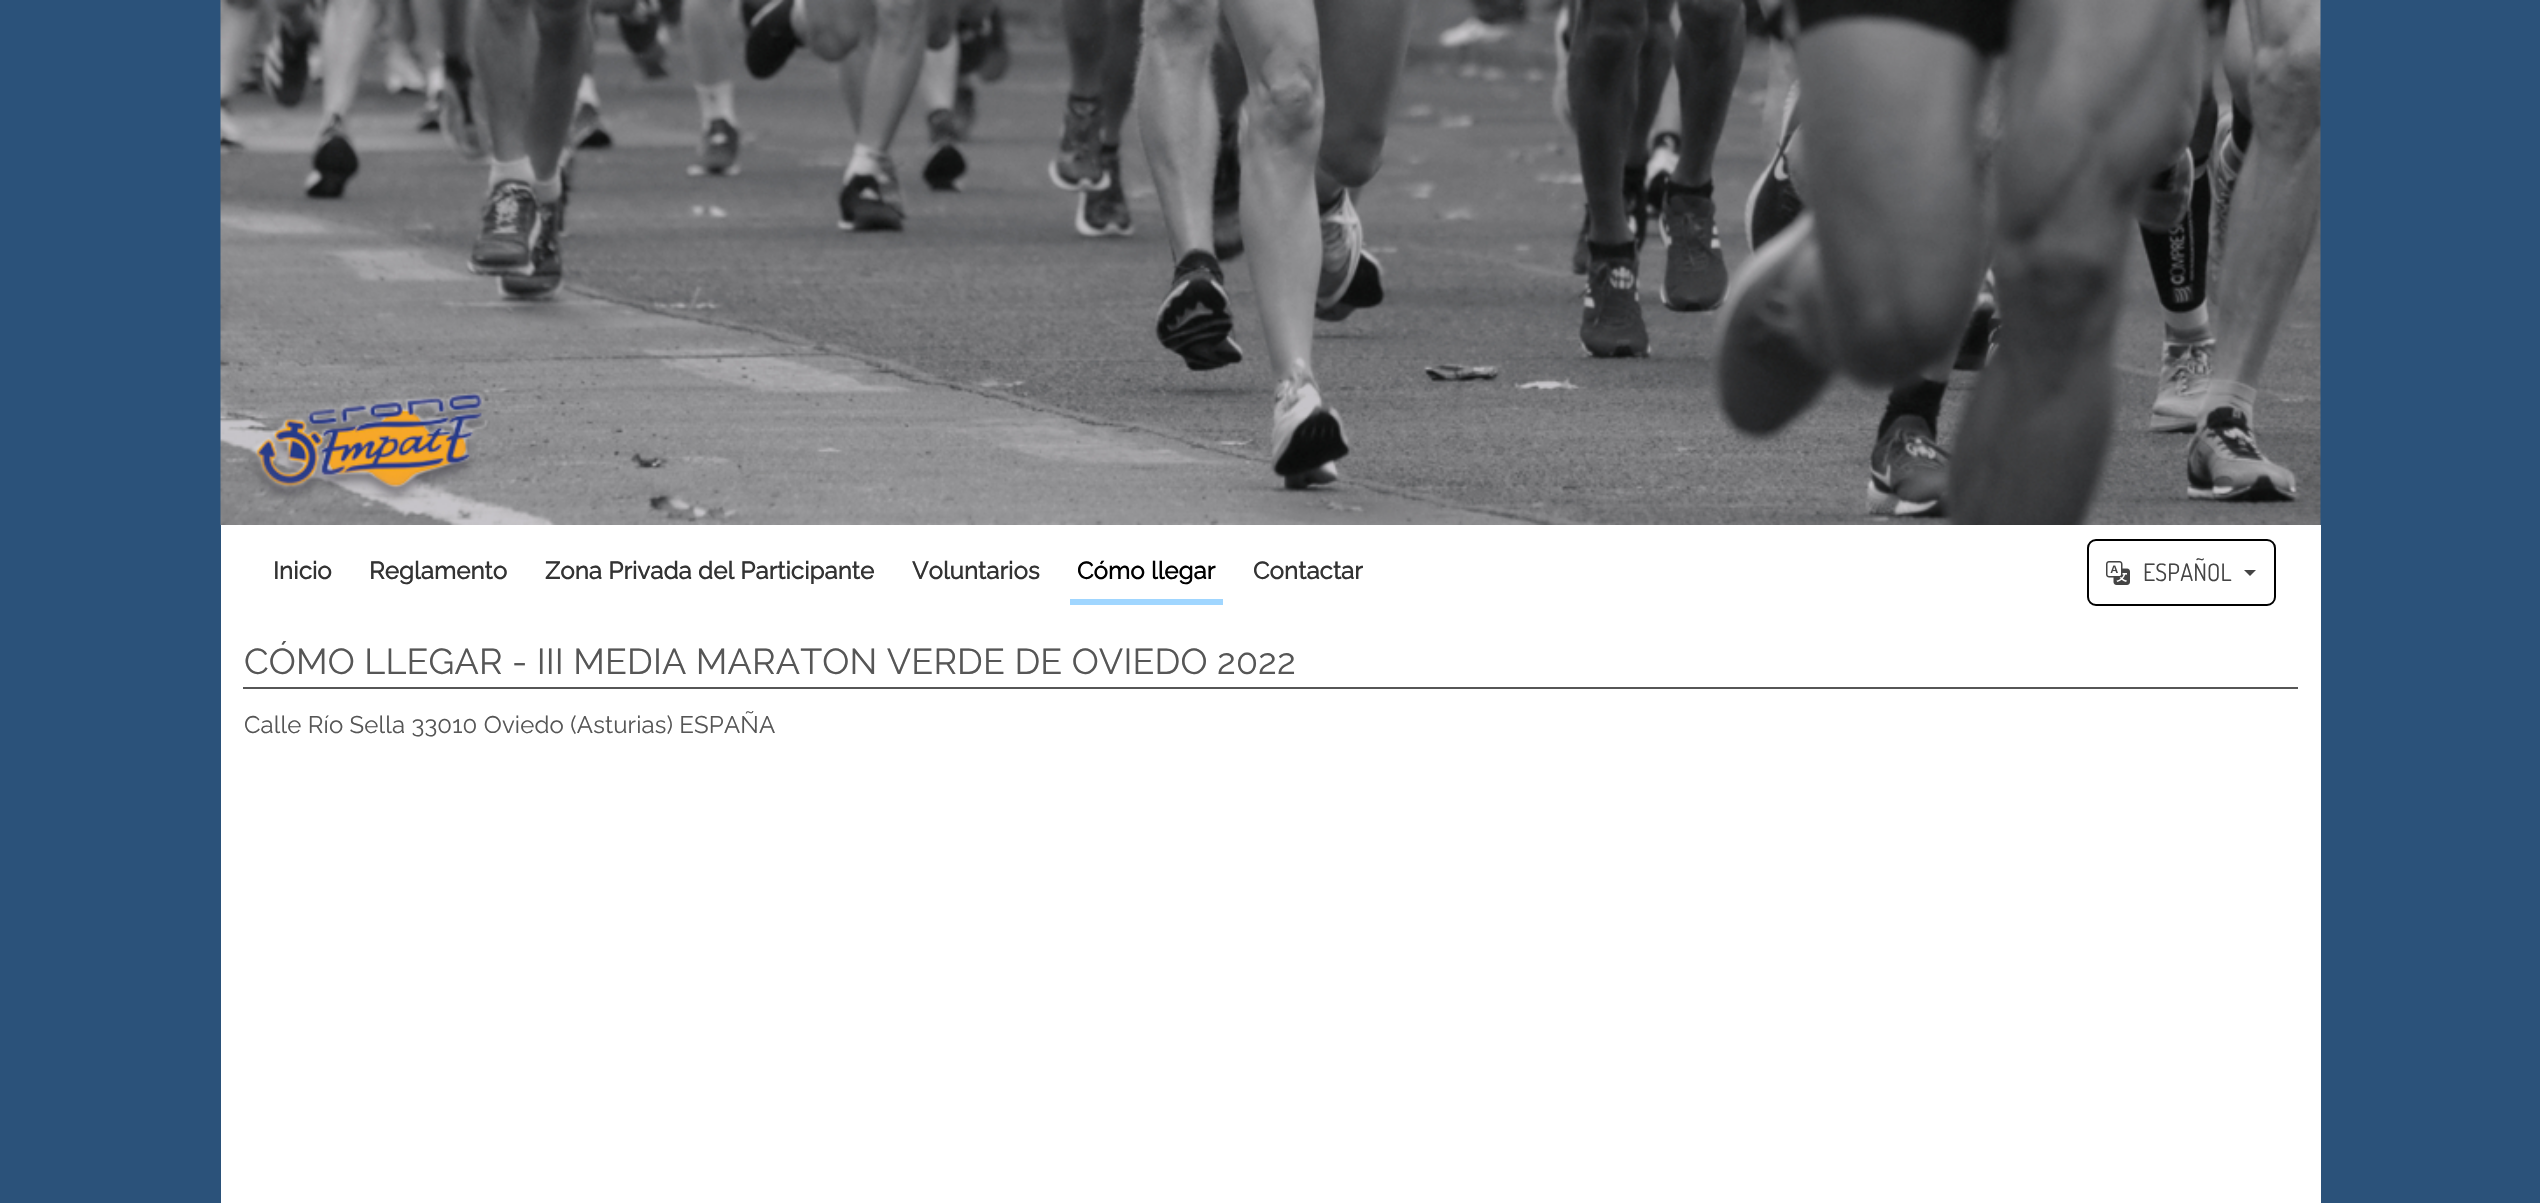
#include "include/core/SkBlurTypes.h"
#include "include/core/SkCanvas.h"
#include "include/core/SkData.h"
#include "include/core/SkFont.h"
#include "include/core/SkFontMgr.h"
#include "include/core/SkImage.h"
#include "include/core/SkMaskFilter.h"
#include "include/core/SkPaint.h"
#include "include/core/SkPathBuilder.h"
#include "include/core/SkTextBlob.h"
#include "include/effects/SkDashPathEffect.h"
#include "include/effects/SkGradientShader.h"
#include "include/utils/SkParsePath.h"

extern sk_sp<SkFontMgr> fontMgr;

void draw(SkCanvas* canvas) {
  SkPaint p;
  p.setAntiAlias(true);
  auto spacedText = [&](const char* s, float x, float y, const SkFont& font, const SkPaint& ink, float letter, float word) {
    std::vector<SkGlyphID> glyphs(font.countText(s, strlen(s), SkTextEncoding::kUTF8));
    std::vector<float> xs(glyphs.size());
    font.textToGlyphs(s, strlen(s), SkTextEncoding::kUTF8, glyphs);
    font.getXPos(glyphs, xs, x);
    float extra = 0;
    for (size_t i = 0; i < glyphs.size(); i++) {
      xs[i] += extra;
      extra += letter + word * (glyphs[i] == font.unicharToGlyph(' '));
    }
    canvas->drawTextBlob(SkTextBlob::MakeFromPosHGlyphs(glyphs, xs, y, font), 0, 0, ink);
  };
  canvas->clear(SkColorSetRGB(43, 82, 122));
  canvas->drawImageRect(SkImages::DeferredFromEncodedData(SkData::MakeFromFileName("images/1.png")), SkRect::MakeLTRB(220, 0, 2321, 525), SkSamplingOptions());
  p.setColor(SK_ColorWHITE);
  canvas->drawRect(SkRect::MakeLTRB(221, 525, 2321, 1203), p);
  p.setColor(SkColorSetRGB(160, 214, 255));
  canvas->drawRect(SkRect::MakeLTRB(1070, 599, 1223, 605), p);
  p.setStyle(SkPaint::kStroke_Style);
  p.setStrokeWidth(2);
  p.setColor(SK_ColorBLACK);
  canvas->drawRoundRect(SkRect::MakeLTRB(2088, 540, 2275, 605), 8, 8, p);
  canvas->drawImageRect(SkImages::DeferredFromEncodedData(SkData::MakeFromFileName("images/2.png")), SkRect::MakeLTRB(2106, 561, 2130, 585), SkSamplingOptions());
  p.setStyle(SkPaint::kFill_Style);
  p.setColor(SkColorSetRGB(68, 68, 68));
  canvas->drawPath(SkPathBuilder().moveTo(2244, 570).lineTo(2256, 570).lineTo(2250, 576).close().detach(), p);
  p.setColor(SkColorSetRGB(86, 86, 86));
  canvas->drawRect(SkRect::MakeLTRB(243, 687, 2298, 689), p);
  SkFont font1(fontMgr->matchFamilyStyle("Raleway", SkFontStyle::Bold()), 24);
  font1.setSubpixel(true);
  p.setColor(SkColorSetRGB(51, 51, 51));
  spacedText("Inicio", 273, 579, font1, p, 0.15f, 0);
  spacedText("Reglamento", 369, 579, font1, p, 0.15f, 0);
  spacedText("Zona Privada del Participante", 545, 579, font1, p, 0.15f, 0);
  spacedText("Voluntarios", 912, 579, font1, p, 0.15f, 0);
  p.setColor(SK_ColorBLACK);
  spacedText("Cómo llegar", 1077, 579, font1, p, 0.15f, 0);
  p.setColor(SkColorSetRGB(51, 51, 51));
  spacedText("Contactar", 1253, 579, font1, p, 0.15f, 0);
  SkFont font2(fontMgr->matchFamilyStyle("Dosis", SkFontStyle::Normal()), 24);
  font2.setSubpixel(true);
  p.setColor(SkColorSetRGB(68, 68, 68));
  spacedText("ESPAÑOL", 2143, 581, font2, p, 0.15f, 0);
  SkFont font3(fontMgr->matchFamilyStyle("Raleway", SkFontStyle(100, SkFontStyle::kNormal_Width, SkFontStyle::kUpright_Slant)), 36);
  font3.setSubpixel(true);
  p.setColor(SkColorSetRGB(86, 86, 86));
  spacedText("CÓMO LLEGAR - III MEDIA MARATON VERDE DE OVIEDO 2022", 244, 674, font3, p, 0.15f, 0);
  SkFont font4(fontMgr->matchFamilyStyle("Raleway", SkFontStyle(100, SkFontStyle::kNormal_Width, SkFontStyle::kUpright_Slant)), 24);
  font4.setSubpixel(true);
  spacedText("Calle Río Sella 33010 Oviedo (Asturias) ESPAÑA", 244, 733, font4, p, 0.15f, 0);
}
